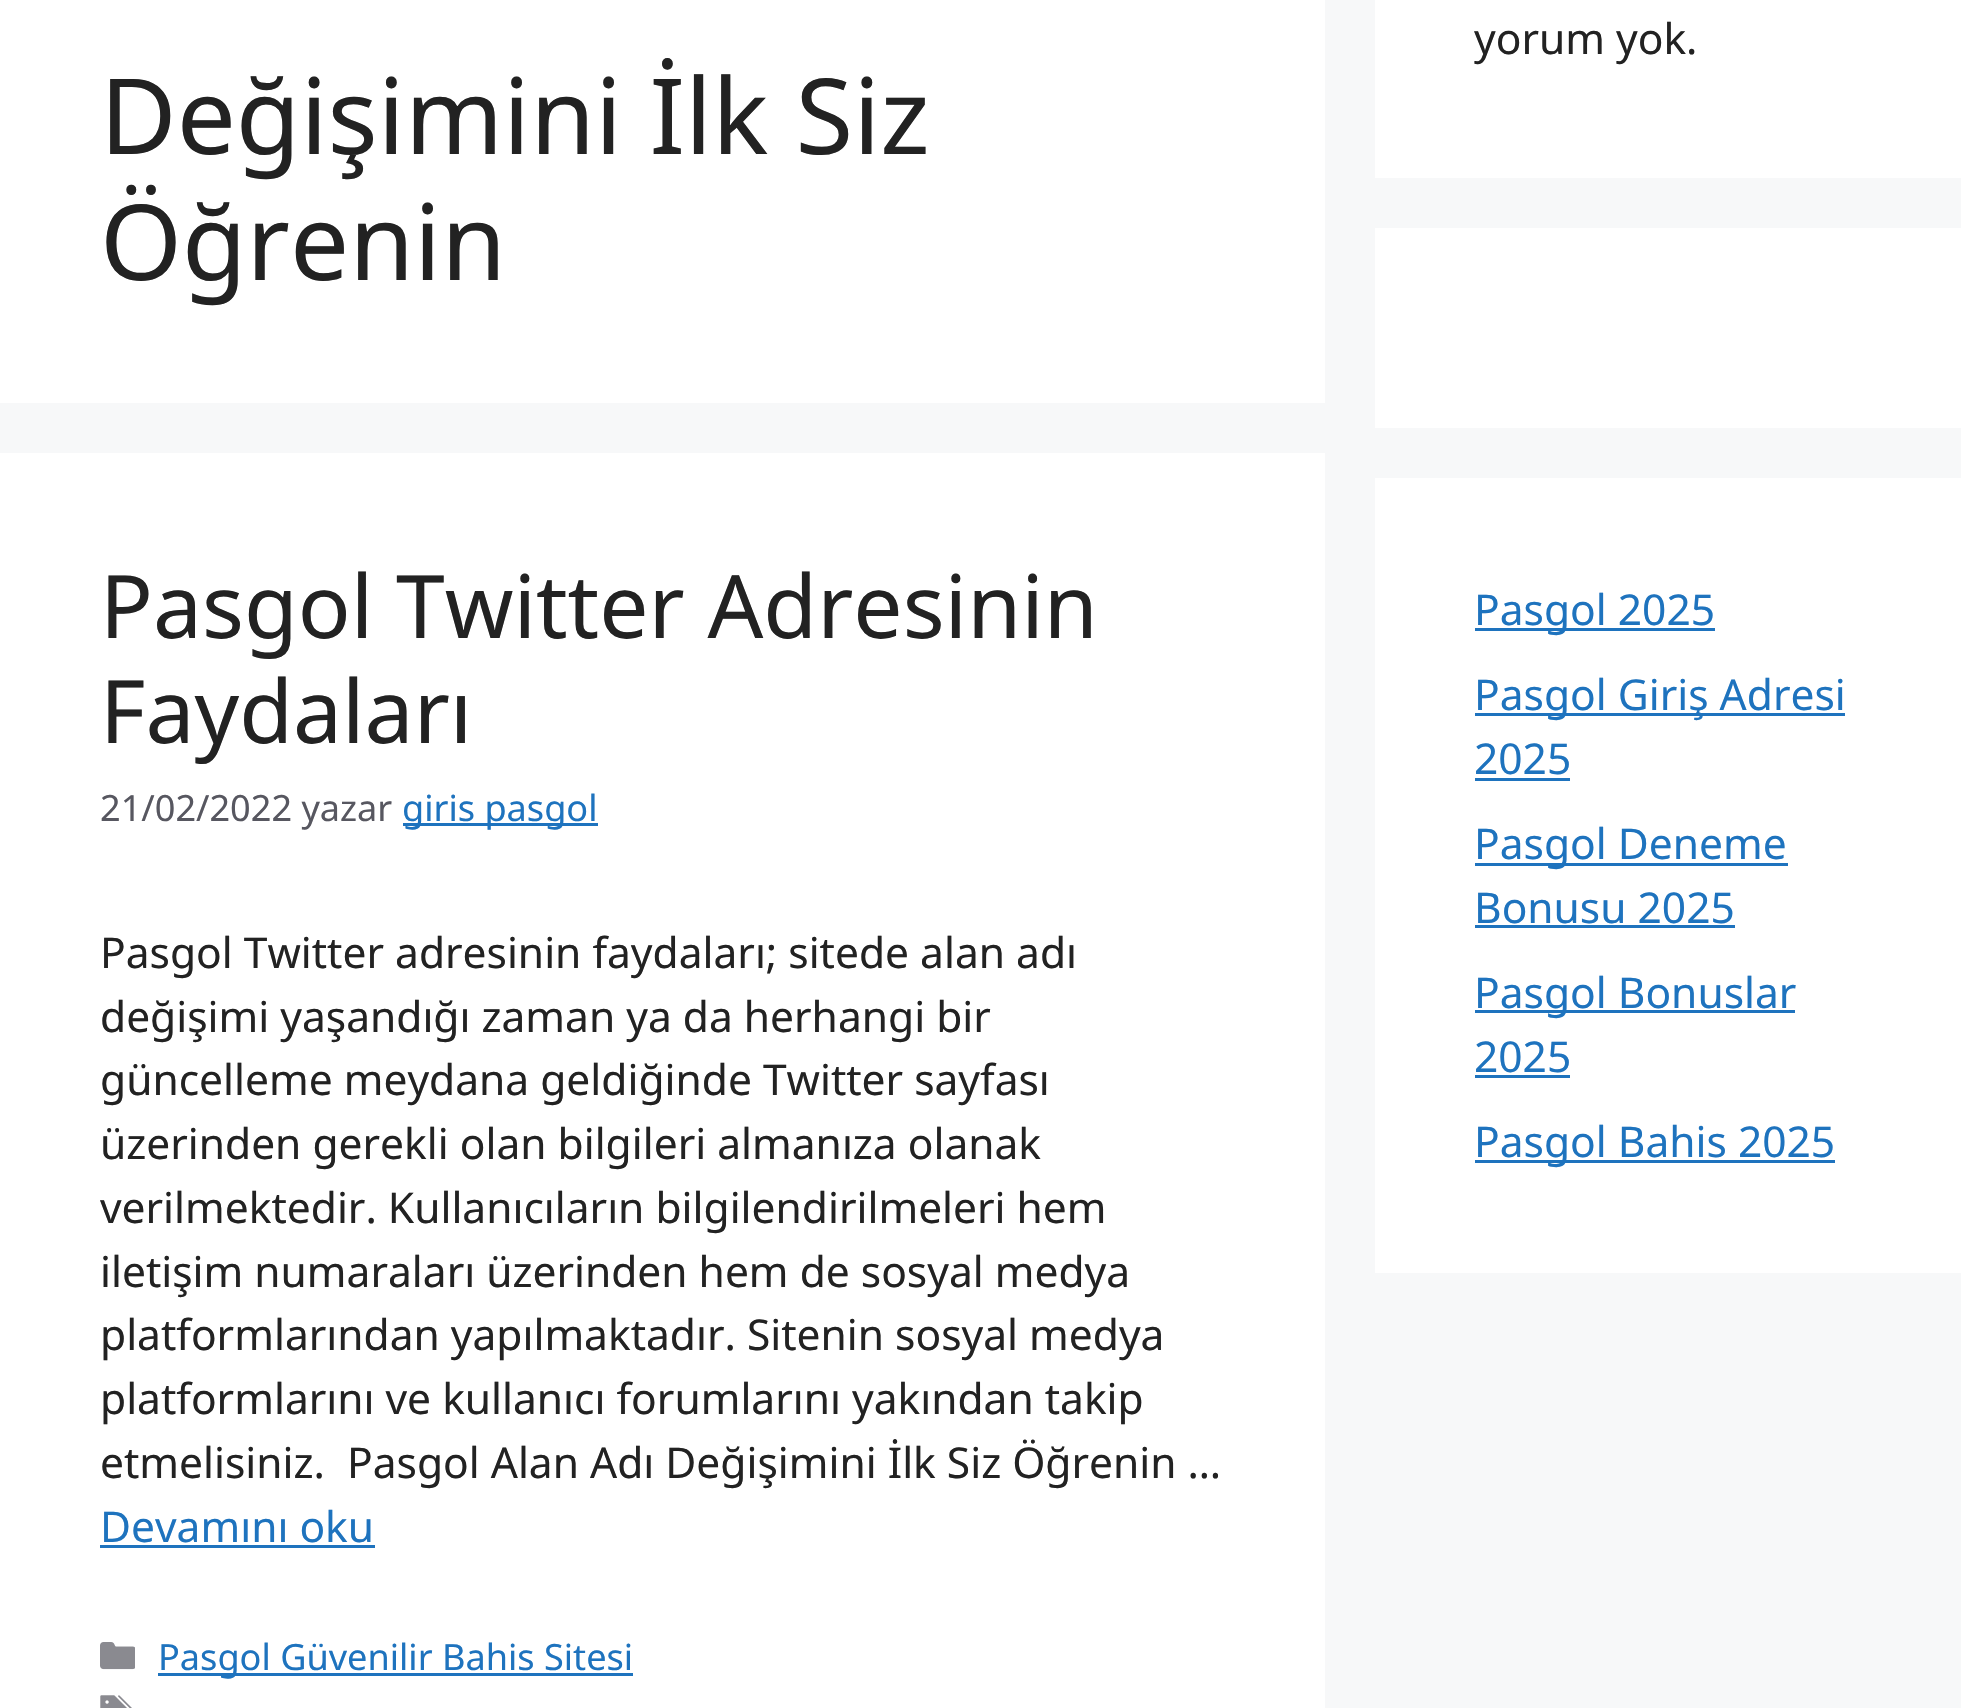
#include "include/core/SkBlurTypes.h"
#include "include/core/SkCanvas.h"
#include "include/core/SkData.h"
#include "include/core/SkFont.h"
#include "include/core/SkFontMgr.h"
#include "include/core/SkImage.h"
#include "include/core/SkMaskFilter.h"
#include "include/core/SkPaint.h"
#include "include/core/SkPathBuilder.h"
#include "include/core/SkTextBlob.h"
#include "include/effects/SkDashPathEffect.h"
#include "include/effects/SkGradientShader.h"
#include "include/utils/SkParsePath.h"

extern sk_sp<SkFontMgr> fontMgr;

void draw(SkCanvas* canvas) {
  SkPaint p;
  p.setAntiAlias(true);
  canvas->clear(SkColorSetRGB(247, 248, 249));
  p.setColor(SK_ColorWHITE);
  canvas->drawRect(SkRect::MakeLTRB(0, 0, 1325, 403), p);
  canvas->drawRect(SkRect::MakeLTRB(0, 453, 1325, 1708), p);
  p.setColor(SkColorSetRGB(30, 115, 190));
  canvas->drawRect(SkRect::MakeLTRB(403, 823, 598, 826), p);
  canvas->drawRect(SkRect::MakeLTRB(100, 1545, 375, 1548), p);
  canvas->drawImageRect(SkImages::DeferredFromEncodedData(SkData::MakeFromFileName("images/1.png")), SkRect::MakeLTRB(100, 1642, 135, 1670), SkSamplingOptions());
  canvas->drawRect(SkRect::MakeLTRB(158, 1673, 633, 1676), p);
  canvas->drawImageRect(SkImages::DeferredFromEncodedData(SkData::MakeFromFileName("images/2.png")), SkRect::MakeLTRB(100, 1695, 132, 1708), SkSamplingOptions());
  p.setColor(SK_ColorWHITE);
  canvas->drawRect(SkRect::MakeLTRB(1375, 0, 1961, 178), p);
  canvas->drawRect(SkRect::MakeLTRB(1375, 228, 1961, 428), p);
  canvas->drawRect(SkRect::MakeLTRB(1375, 478, 1961, 1273), p);
  p.setColor(SkColorSetRGB(30, 115, 190));
  canvas->drawRect(SkRect::MakeLTRB(1475, 628, 1715, 631), p);
  canvas->drawRect(SkRect::MakeLTRB(1475, 713, 1845, 716), p);
  canvas->drawRect(SkRect::MakeLTRB(1475, 778, 1570, 781), p);
  canvas->drawRect(SkRect::MakeLTRB(1475, 863, 1788, 866), p);
  canvas->drawRect(SkRect::MakeLTRB(1475, 925, 1735, 928), p);
  canvas->drawRect(SkRect::MakeLTRB(1475, 1010, 1795, 1013), p);
  canvas->drawRect(SkRect::MakeLTRB(1475, 1075, 1570, 1078), p);
  canvas->drawRect(SkRect::MakeLTRB(1475, 1160, 1835, 1163), p);
  SkFont font1(fontMgr->matchFamilyStyle("Noto Sans", SkFontStyle::Normal()), 105);
  font1.setSubpixel(true);
  p.setColor(SkColorSetRGB(34, 34, 34));
  canvas->drawString("Değişimini İlk Siz", 100, 154, font1, p);
  canvas->drawString("Öğrenin", 100, 280, font1, p);
  SkFont font2(fontMgr->matchFamilyStyle("Noto Sans", SkFontStyle::Normal()), 87.5f);
  font2.setSubpixel(true);
  canvas->drawString("Pasgol Twitter Adresinin", 100, 638, font2, p);
  canvas->drawString("Faydaları", 100, 743, font2, p);
  SkFont font3(fontMgr->matchFamilyStyle("Noto Sans", SkFontStyle::Normal()), 36.1f);
  font3.setSubpixel(true);
  p.setColor(SkColorSetRGB(87, 87, 96));
  canvas->drawString("21/02/2022 yazar", 100, 821, font3, p);
  p.setColor(SkColorSetRGB(30, 115, 190));
  canvas->drawString("giris pasgol", 402, 821, font3, p);
  SkFont font4(fontMgr->matchFamilyStyle("Noto Sans", SkFontStyle::Normal()), 42.5f);
  font4.setSubpixel(true);
  p.setColor(SkColorSetRGB(34, 34, 34));
  canvas->drawString("Pasgol Twitter adresinin faydaları; sitede alan adı", 100, 968, font4, p);
  canvas->drawString("değişimi yaşandığı zaman ya da herhangi bir", 100, 1032, font4, p);
  canvas->drawString("güncelleme meydana geldiğinde Twitter sayfası", 100, 1095, font4, p);
  canvas->drawString("üzerinden gerekli olan bilgileri almanıza olanak", 100, 1159, font4, p);
  canvas->drawString("verilmektedir. Kullanıcıların bilgilendirilmeleri hem", 100, 1223, font4, p);
  canvas->drawString("iletişim numaraları üzerinden hem de sosyal medya", 100, 1287, font4, p);
  canvas->drawString("platformlarından yapılmaktadır. Sitenin sosyal medya", 100, 1350, font4, p);
  canvas->drawString("platformlarını ve kullanıcı forumlarını yakından takip", 100, 1414, font4, p);
  canvas->drawString("etmelisiniz.  Pasgol Alan Adı Değişimini İlk Siz Öğrenin …", 100, 1478, font4, p);
  p.setColor(SkColorSetRGB(30, 115, 190));
  canvas->drawString("Devamını oku", 100, 1542, font4, p);
  canvas->drawString("Pasgol Güvenilir Bahis Sitesi", 158, 1670, font3, p);
  p.setColor(SkColorSetRGB(34, 34, 34));
  canvas->drawString("yorum yok.", 1474, 54, font4, p);
  p.setColor(SkColorSetRGB(30, 115, 190));
  canvas->drawString("Pasgol 2025", 1474, 625, font4, p);
  canvas->drawString("Pasgol Giriş Adresi", 1474, 710, font4, p);
  canvas->drawString("2025", 1474, 774, font4, p);
  canvas->drawString("Pasgol Deneme", 1474, 859, font4, p);
  canvas->drawString("Bonusu 2025", 1474, 923, font4, p);
  canvas->drawString("Pasgol Bonuslar", 1474, 1008, font4, p);
  canvas->drawString("2025", 1474, 1072, font4, p);
  canvas->drawString("Pasgol Bahis 2025", 1474, 1157, font4, p);
}
